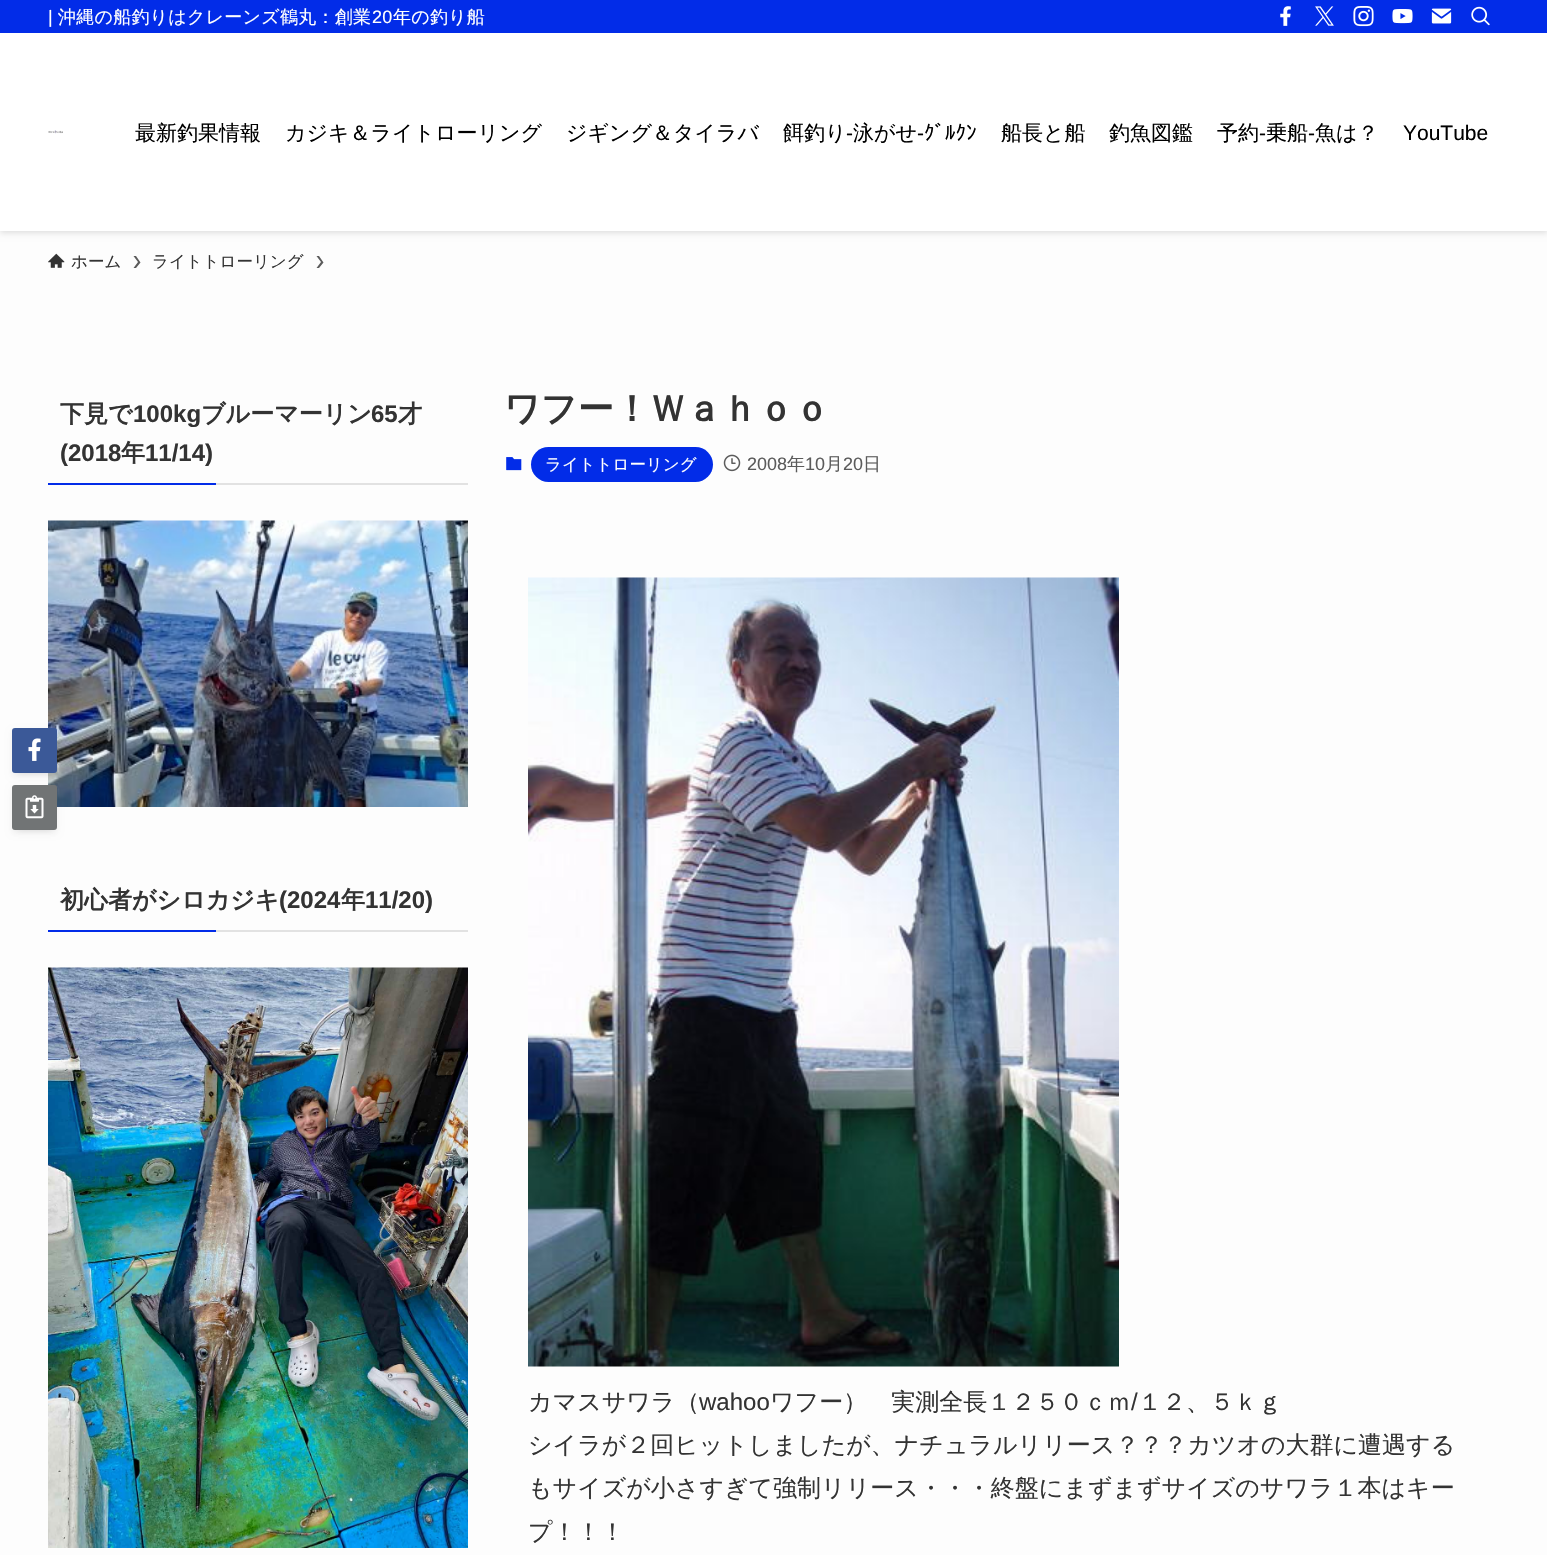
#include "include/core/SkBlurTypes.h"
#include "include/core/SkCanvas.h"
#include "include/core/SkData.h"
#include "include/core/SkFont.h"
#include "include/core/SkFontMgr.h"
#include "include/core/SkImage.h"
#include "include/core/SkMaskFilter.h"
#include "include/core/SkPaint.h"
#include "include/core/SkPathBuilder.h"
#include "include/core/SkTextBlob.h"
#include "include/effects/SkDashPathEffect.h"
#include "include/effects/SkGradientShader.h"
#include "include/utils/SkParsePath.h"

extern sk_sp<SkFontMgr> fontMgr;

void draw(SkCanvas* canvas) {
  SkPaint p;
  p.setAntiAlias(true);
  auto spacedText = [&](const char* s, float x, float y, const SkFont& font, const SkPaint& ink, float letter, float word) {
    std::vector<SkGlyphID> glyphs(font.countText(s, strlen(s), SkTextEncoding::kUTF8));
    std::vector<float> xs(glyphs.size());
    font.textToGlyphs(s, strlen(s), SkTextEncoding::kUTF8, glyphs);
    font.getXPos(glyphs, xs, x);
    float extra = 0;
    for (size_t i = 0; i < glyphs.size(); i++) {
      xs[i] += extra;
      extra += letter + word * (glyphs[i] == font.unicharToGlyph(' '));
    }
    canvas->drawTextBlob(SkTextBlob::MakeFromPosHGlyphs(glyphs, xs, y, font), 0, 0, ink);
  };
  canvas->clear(SkColorSetRGB(253, 253, 253));
  p.setColor(SkColorSetARGB(31, 0, 0, 0));
  p.setMaskFilter(SkMaskFilter::MakeBlur(kNormal_SkBlurStyle, 3));
  canvas->drawRect(SkRect::MakeLTRB(0, 2, 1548, 233), p);
  p.setMaskFilter(nullptr);
  p.setColor(SK_ColorWHITE);
  canvas->drawRect(SkRect::MakeLTRB(0, 33, 1547, 231), p);
  p.setColor(SkColorSetRGB(2, 44, 232));
  canvas->drawRect(SkRect::MakeLTRB(0, 0, 1547, 33), p);
  canvas->drawImageRect(SkImages::DeferredFromEncodedData(SkData::MakeFromFileName("images/1.png")), SkRect::MakeLTRB(1280, 6, 1291, 26), SkSamplingOptions());
  canvas->drawImageRect(SkImages::DeferredFromEncodedData(SkData::MakeFromFileName("images/2.png")), SkRect::MakeLTRB(1315, 6, 1334, 26), SkSamplingOptions());
  canvas->drawImageRect(SkImages::DeferredFromEncodedData(SkData::MakeFromFileName("images/3.png")), SkRect::MakeLTRB(1353, 6, 1374, 27), SkSamplingOptions());
  canvas->drawImageRect(SkImages::DeferredFromEncodedData(SkData::MakeFromFileName("images/4.png")), SkRect::MakeLTRB(1392, 9, 1413, 24), SkSamplingOptions());
  canvas->drawImageRect(SkImages::DeferredFromEncodedData(SkData::MakeFromFileName("images/5.png")), SkRect::MakeLTRB(1431, 8, 1452, 24), SkSamplingOptions());
  canvas->drawImageRect(SkImages::DeferredFromEncodedData(SkData::MakeFromFileName("images/6.png")), SkRect::MakeLTRB(1471, 6, 1490, 26), SkSamplingOptions());
  canvas->drawImageRect(SkImages::DeferredFromEncodedData(SkData::MakeFromFileName("images/7.png")), SkRect::MakeLTRB(48, 130, 63, 134), SkSamplingOptions());
  canvas->drawImageRect(SkImages::DeferredFromEncodedData(SkData::MakeFromFileName("images/8.png")), SkRect::MakeLTRB(48, 253, 65, 268), SkSamplingOptions());
  p.setColor(SkColorSetRGB(91, 91, 91));
  canvas->drawPath(SkPathBuilder().moveTo(136, 256).lineTo(133.5f, 256).lineTo(138, 262).lineTo(133.5f, 268).lineTo(136, 268).lineTo(140.5f, 262.5f).close().detach(), p);
  canvas->drawPath(SkPathBuilder().moveTo(319, 256).lineTo(316.5f, 256).lineTo(321, 262).lineTo(316.5f, 268).lineTo(319, 268).lineTo(323.5f, 262.5f).close().detach(), p);
  p.setColor(SkColorSetRGB(2, 44, 232));
  canvas->drawRect(SkRect::MakeLTRB(48, 483, 216, 485), p);
  p.setColor(SkColorSetRGB(226, 226, 226));
  canvas->drawRect(SkRect::MakeLTRB(216, 483, 468, 485), p);
  canvas->drawImageRect(SkImages::DeferredFromEncodedData(SkData::MakeFromFileName("images/9.png")), SkRect::MakeLTRB(48, 520, 468, 807), SkSamplingOptions());
  p.setColor(SkColorSetRGB(2, 44, 232));
  canvas->drawRect(SkRect::MakeLTRB(48, 930, 216, 932), p);
  p.setColor(SkColorSetRGB(226, 226, 226));
  canvas->drawRect(SkRect::MakeLTRB(216, 930, 468, 932), p);
  canvas->drawImageRect(SkImages::DeferredFromEncodedData(SkData::MakeFromFileName("images/10.png")), SkRect::MakeLTRB(48, 967, 468, 1548), SkSamplingOptions());
  canvas->drawImageRect(SkImages::DeferredFromEncodedData(SkData::MakeFromFileName("images/11.png")), SkRect::MakeLTRB(506, 457, 522, 471), SkSamplingOptions());
  p.setColor(SkColorSetRGB(2, 44, 232));
  canvas->drawRoundRect(SkRect::MakeLTRB(531, 447, 713, 482), 17.5f, 17.5f, p);
  canvas->drawImageRect(SkImages::DeferredFromEncodedData(SkData::MakeFromFileName("images/12.png")), SkRect::MakeLTRB(723, 454, 741, 472), SkSamplingOptions());
  p.setColor(SkColorSetARGB(26, 0, 0, 0));
  p.setMaskFilter(SkMaskFilter::MakeBlur(kNormal_SkBlurStyle, 3));
  canvas->drawRect(SkRect::MakeLTRB(18, 740, 51, 773), p);
  p.setMaskFilter(nullptr);
  p.setColor(SkColorSetARGB(13, 0, 0, 0));
  p.setMaskFilter(SkMaskFilter::MakeBlur(kNormal_SkBlurStyle, 3));
  canvas->drawRoundRect(SkRect::MakeLTRB(12, 731, 57, 776), 3, 3, p);
  p.setMaskFilter(nullptr);
  p.setColor(SkColorSetRGB(59, 89, 152));
  canvas->drawRoundRect(SkRect::MakeLTRB(12, 728, 57, 773), 3, 3, p);
  canvas->drawImageRect(SkImages::DeferredFromEncodedData(SkData::MakeFromFileName("images/13.png")), SkRect::MakeLTRB(28, 738, 41, 761), SkSamplingOptions());
  p.setColor(SkColorSetARGB(26, 0, 0, 0));
  p.setMaskFilter(SkMaskFilter::MakeBlur(kNormal_SkBlurStyle, 3));
  canvas->drawRect(SkRect::MakeLTRB(18, 797, 51, 830), p);
  p.setMaskFilter(nullptr);
  p.setColor(SkColorSetARGB(13, 0, 0, 0));
  p.setMaskFilter(SkMaskFilter::MakeBlur(kNormal_SkBlurStyle, 3));
  canvas->drawRoundRect(SkRect::MakeLTRB(12, 788, 57, 833), 3, 3, p);
  p.setMaskFilter(nullptr);
  p.setColor(SkColorSetRGB(113, 116, 117));
  canvas->drawRoundRect(SkRect::MakeLTRB(12, 785, 57, 830), 3, 3, p);
  canvas->drawImageRect(SkImages::DeferredFromEncodedData(SkData::MakeFromFileName("images/14.png")), SkRect::MakeLTRB(25, 795, 44, 819), SkSamplingOptions());
  canvas->drawImageRect(SkImages::DeferredFromEncodedData(SkData::MakeFromFileName("images/15.png")), SkRect::MakeLTRB(528, 577, 1119, 1367), SkSamplingOptions());
  SkFont font1(fontMgr->matchFamilyStyle("Liberation Sans", SkFontStyle::Normal()), 18);
  font1.setSubpixel(true);
  p.setColor(SK_ColorWHITE);
  spacedText("|", 48, 23, font1, p, 0.25f, 0);
  SkFont font2(fontMgr->matchFamilyStyle("WenQuanYi Zen Hei", SkFontStyle(500, SkFontStyle::kNormal_Width, SkFontStyle::kUpright_Slant)), 18);
  font2.setSubpixel(true);
  spacedText("沖縄の船釣りはクレーンズ鶴丸：創業", 58, 23, font2, p, 0.25f, 0);
  spacedText("20", 372, 23, font1, p, 0.25f, 0);
  spacedText("年の釣り船", 393, 23, font2, p, 0.25f, 0);
  SkFont font3(fontMgr->matchFamilyStyle("WenQuanYi Zen Hei", SkFontStyle(500, SkFontStyle::kNormal_Width, SkFontStyle::kUpright_Slant)), 21);
  font3.setSubpixel(true);
  p.setColor(SK_ColorBLACK);
  canvas->drawString("最新釣果情報", 135, 140, font3, p);
  canvas->drawString("カジキ＆ライトローリング", 285, 140, font3, p);
  canvas->drawString("ジギング＆タイラバ", 566, 140, font3, p);
  canvas->drawString("餌釣り", 783, 140, font3, p);
  SkFont font4(fontMgr->matchFamilyStyle("Liberation Sans", SkFontStyle::Normal()), 21);
  font4.setSubpixel(true);
  canvas->drawString("-", 846, 140, font4, p);
  canvas->drawString("泳がせ", 853, 140, font3, p);
  canvas->drawString("-", 917, 140, font4, p);
  SkFont font5(fontMgr->matchFamilyStyle("IPAPGothic", SkFontStyle::Normal()), 21);
  font5.setSubpixel(true);
  canvas->drawString("ｸﾞﾙｸﾝ", 924, 140, font5, p);
  canvas->drawString("船長と船", 1001, 140, font3, p);
  canvas->drawString("釣魚図鑑", 1109, 140, font3, p);
  canvas->drawString("予約", 1217, 140, font3, p);
  canvas->drawString("-", 1259, 140, font4, p);
  canvas->drawString("乗船", 1266, 140, font3, p);
  canvas->drawString("-", 1308, 140, font4, p);
  canvas->drawString("魚は？", 1315, 140, font3, p);
  canvas->drawString("YouTube", 1403, 140, font4, p);
  SkFont font6(fontMgr->matchFamilyStyle("WenQuanYi Zen Hei", SkFontStyle(500, SkFontStyle::kNormal_Width, SkFontStyle::kUpright_Slant)), 16.5f);
  font6.setSubpixel(true);
  p.setColor(SkColorSetRGB(51, 51, 51));
  canvas->drawString("ホーム", 71, 267, font6, p);
  canvas->drawString("ライトトローリング", 152, 267, font6, p);
  SkFont font7(fontMgr->matchFamilyStyle("WenQuanYi Zen Hei", SkFontStyle::Bold()), 24);
  font7.setSubpixel(true);
  canvas->drawString("下見で", 60, 422, font7, p);
  SkFont font8(fontMgr->matchFamilyStyle("Liberation Sans", SkFontStyle::Bold()), 24);
  font8.setSubpixel(true);
  canvas->drawString("100kg", 133, 422, font8, p);
  canvas->drawString("ブルーマーリン", 201, 422, font7, p);
  canvas->drawString("65", 371, 422, font8, p);
  canvas->drawString("才", 398, 422, font7, p);
  canvas->drawString("(2018", 60, 461, font8, p);
  canvas->drawString("年", 121, 461, font7, p);
  canvas->drawString("11/14)", 145, 461, font8, p);
  canvas->drawString("初心者がシロカジキ", 60, 908, font7, p);
  canvas->drawString("(2024", 279, 908, font8, p);
  canvas->drawString("年", 341, 908, font7, p);
  canvas->drawString("11/20)", 365, 908, font8, p);
  SkFont font9(fontMgr->matchFamilyStyle("WenQuanYi Zen Hei", SkFontStyle::Bold()), 36);
  font9.setSubpixel(true);
  canvas->drawString("ワフー！Ｗａｈｏｏ", 504, 421, font9, p);
  p.setColor(SK_ColorWHITE);
  canvas->drawString("ライトトローリング", 545, 470, font6, p);
  p.setColor(SkColorSetRGB(91, 91, 91));
  canvas->drawString("2008", 747, 470, font1, p);
  canvas->drawString("年", 787, 470, font2, p);
  canvas->drawString("10", 805, 470, font1, p);
  canvas->drawString("月", 825, 470, font2, p);
  canvas->drawString("20", 843, 470, font1, p);
  canvas->drawString("日", 863, 470, font2, p);
  SkFont font10(fontMgr->matchFamilyStyle("WenQuanYi Zen Hei", SkFontStyle(500, SkFontStyle::kNormal_Width, SkFontStyle::kUpright_Slant)), 24);
  font10.setSubpixel(true);
  p.setColor(SkColorSetRGB(51, 51, 51));
  canvas->drawString("カマスサワラ（", 528, 1410, font10, p);
  SkFont font11(fontMgr->matchFamilyStyle("Liberation Sans", SkFontStyle::Normal()), 24);
  font11.setSubpixel(true);
  canvas->drawString("wahoo", 699, 1410, font11, p);
  canvas->drawString("ワフー）　実測全長１２５０ｃｍ", 770, 1410, font10, p);
  canvas->drawString("/", 1131, 1410, font11, p);
  canvas->drawString("１２、５ｋｇ", 1138, 1410, font10, p);
  canvas->drawString("シイラが２回ヒットしましたが、ナチュラルリリース？？？カツオの大群に遭遇する", 528, 1453, font10, p);
  canvas->drawString("もサイズが小さすぎて強制リリース・・・終盤にまずまずサイズのサワラ１本はキー", 528, 1496, font10, p);
  canvas->drawString("プ！！！", 528, 1540, font10, p);
}
